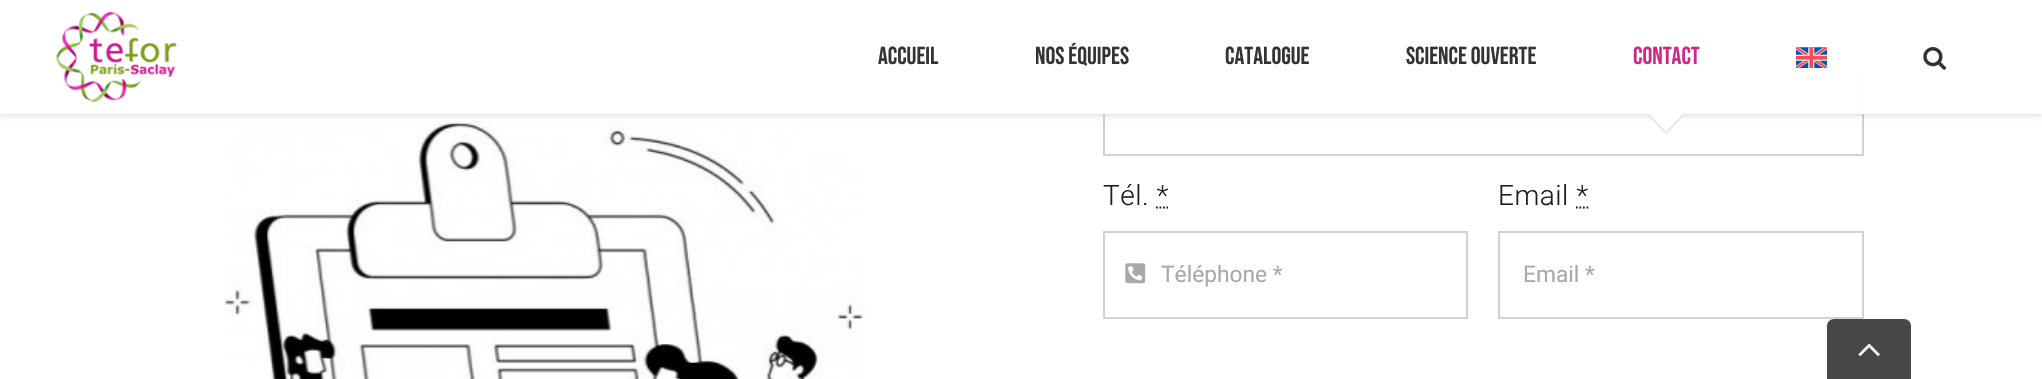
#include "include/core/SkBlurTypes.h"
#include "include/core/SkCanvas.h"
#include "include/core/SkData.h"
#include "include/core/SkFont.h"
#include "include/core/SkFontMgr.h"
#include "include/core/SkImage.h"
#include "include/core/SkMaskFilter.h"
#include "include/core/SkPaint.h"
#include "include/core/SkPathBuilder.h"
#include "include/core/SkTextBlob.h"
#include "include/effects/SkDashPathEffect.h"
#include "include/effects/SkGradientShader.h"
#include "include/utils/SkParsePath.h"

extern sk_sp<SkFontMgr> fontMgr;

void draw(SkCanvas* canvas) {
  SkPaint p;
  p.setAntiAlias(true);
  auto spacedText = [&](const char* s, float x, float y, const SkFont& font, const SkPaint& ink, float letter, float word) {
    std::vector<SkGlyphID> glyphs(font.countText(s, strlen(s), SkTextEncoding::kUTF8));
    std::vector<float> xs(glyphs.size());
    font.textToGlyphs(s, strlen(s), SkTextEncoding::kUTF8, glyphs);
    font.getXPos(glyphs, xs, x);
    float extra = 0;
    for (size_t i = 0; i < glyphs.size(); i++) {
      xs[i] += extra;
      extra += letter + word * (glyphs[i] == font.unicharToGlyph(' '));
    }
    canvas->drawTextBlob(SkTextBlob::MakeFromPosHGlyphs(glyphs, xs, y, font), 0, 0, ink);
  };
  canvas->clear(SK_ColorWHITE);
  canvas->drawImageRect(SkImages::DeferredFromEncodedData(SkData::MakeFromFileName("images/4.png")), SkRect::MakeLTRB(224, 121, 865, 379), SkSamplingOptions());
  p.setStyle(SkPaint::kStroke_Style);
  p.setStrokeWidth(1.8f);
  p.setColor(SkColorSetRGB(28, 28, 28));
  p.setPathEffect(SkDashPathEffect::Make({{1.75f, 1.75f}}, 0));
  canvas->drawPath(SkPathBuilder().moveTo(1274, 46.5f).lineTo(1286.5f, 46.5f).detach(), p);
  p.setPathEffect(nullptr);
  p.setStrokeWidth(2);
  p.setColor(SkColorSetRGB(210, 210, 210));
  canvas->drawRect(SkRect::MakeLTRB(1104, 69, 1863, 155), p);
  canvas->save();
  canvas->clipPath(SkPathBuilder(SkPathFillType::kEvenOdd).moveTo(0, 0).lineTo(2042, 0).lineTo(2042, 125).lineTo(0, 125).close().moveTo(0, 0).lineTo(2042, 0).lineTo(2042, 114).lineTo(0, 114).close().detach(), true);
  p.setStyle(SkPaint::kFill_Style);
  p.setColor(SkColorSetARGB(31, 0, 0, 0));
  p.setMaskFilter(SkMaskFilter::MakeBlur(kNormal_SkBlurStyle, 2.5f));
  canvas->drawRect(SkRect::MakeLTRB(0, 2, 2042, 116), p);
  p.setMaskFilter(nullptr);
  canvas->restore();
  p.setColor(SkColorSetARGB(247, 255, 255, 255));
  canvas->drawRect(SkRect::MakeLTRB(0, 45, 2042, 114), p);
  canvas->drawImageRect(SkImages::DeferredFromEncodedData(SkData::MakeFromFileName("images/1.png")), SkRect::MakeLTRB(56, 11, 177, 103), SkSamplingOptions());
  canvas->save();
  canvas->clipRect(SkRect::MakeLTRB(1647, 114, 1687, 133));
  canvas->drawPath(SkPathBuilder().moveTo(1646, 112).lineTo(1666, 133).lineTo(1686, 112).close().detach(), p);
  p.setStyle(SkPaint::kStroke_Style);
  p.setStrokeWidth(1.8f);
  p.setColor(SkColorSetRGB(229, 229, 229));
  canvas->drawPath(SkPathBuilder().moveTo(1646, 112).lineTo(1666, 133).lineTo(1686, 112).close().detach(), p);
  canvas->restore();
  canvas->drawImageRect(SkImages::DeferredFromEncodedData(SkData::MakeFromFileName("images/2.png")), SkRect::MakeLTRB(1796, 47, 1827, 68), SkSamplingOptions());
  canvas->drawImageRect(SkImages::DeferredFromEncodedData(SkData::MakeFromFileName("images/3.png")), SkRect::MakeLTRB(1923, 47, 1946, 70), SkSamplingOptions());
  p.setColor(SkColorSetRGB(28, 28, 28));
  p.setPathEffect(SkDashPathEffect::Make({{1.75f, 1.75f}}, 0));
  canvas->drawPath(SkPathBuilder().moveTo(1156, 207.5f).lineTo(1168, 207.5f).detach(), p);
  p.setPathEffect(nullptr);
  p.setStrokeWidth(2);
  p.setColor(SkColorSetRGB(210, 210, 210));
  canvas->drawRect(SkRect::MakeLTRB(1104, 232, 1467, 318), p);
  canvas->drawImageRect(SkImages::DeferredFromEncodedData(SkData::MakeFromFileName("images/5.png")), SkRect::MakeLTRB(1125, 263, 1146, 284), SkSamplingOptions());
  p.setStrokeWidth(1.8f);
  p.setColor(SkColorSetRGB(28, 28, 28));
  p.setPathEffect(SkDashPathEffect::Make({{1.75f, 1.75f}}, 0));
  canvas->drawPath(SkPathBuilder().moveTo(1576, 207.5f).lineTo(1588.5f, 207.5f).detach(), p);
  p.setPathEffect(nullptr);
  p.setStrokeWidth(2);
  p.setColor(SkColorSetRGB(210, 210, 210));
  canvas->drawRect(SkRect::MakeLTRB(1499, 232, 1863, 318), p);
  p.setStyle(SkPaint::kFill_Style);
  p.setColor(SkColorSetRGB(71, 71, 71));
  canvas->drawPath(SkPathBuilder().moveTo(1834, 319).lineTo(1904, 319).cubicTo(1908, 319, 1911, 322, 1911, 326).lineTo(1911, 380).lineTo(1827, 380).lineTo(1827, 326).cubicTo(1827, 322, 1830, 319, 1834, 319).close().detach(), p);
  canvas->drawImageRect(SkImages::DeferredFromEncodedData(SkData::MakeFromFileName("images/6.png")), SkRect::MakeLTRB(1858, 343, 1880, 357), SkSamplingOptions());
  SkFont font1(fontMgr->matchFamilyStyle("Bebas Neue", SkFontStyle::Normal()), 24.5f);
  font1.setSubpixel(true);
  p.setColor(SkColorSetRGB(51, 51, 51));
  canvas->drawString("Accueil", 878, 64, font1, p);
  canvas->drawString("Nos Équipes", 1035, 64, font1, p);
  canvas->drawString("CATALOGUE", 1225, 64, font1, p);
  canvas->drawString("Science ouverte", 1406, 64, font1, p);
  p.setColor(SkColorSetRGB(205, 40, 135));
  canvas->drawString("Contact", 1633, 64, font1, p);
  SkFont font2(fontMgr->matchFamilyStyle("Roboto", SkFontStyle(300, SkFontStyle::kNormal_Width, SkFontStyle::kUpright_Slant)), 28);
  font2.setSubpixel(true);
  p.setColor(SkColorSetRGB(28, 28, 28));
  spacedText("Tél. *", 1103, 205, font2, p, 0.5f, 0);
  SkFont font3(fontMgr->matchFamilyStyle("Roboto", SkFontStyle::Normal()), 22.75f);
  font3.setSubpixel(true);
  p.setColor(SkColorSetRGB(170, 169, 169));
  canvas->drawString("Téléphone *", 1161, 282, font3, p);
  p.setColor(SkColorSetRGB(28, 28, 28));
  spacedText("Email *", 1498, 205, font2, p, 0.5f, 0);
  p.setColor(SkColorSetRGB(170, 169, 169));
  canvas->drawString("Email *", 1523, 282, font3, p);
}
